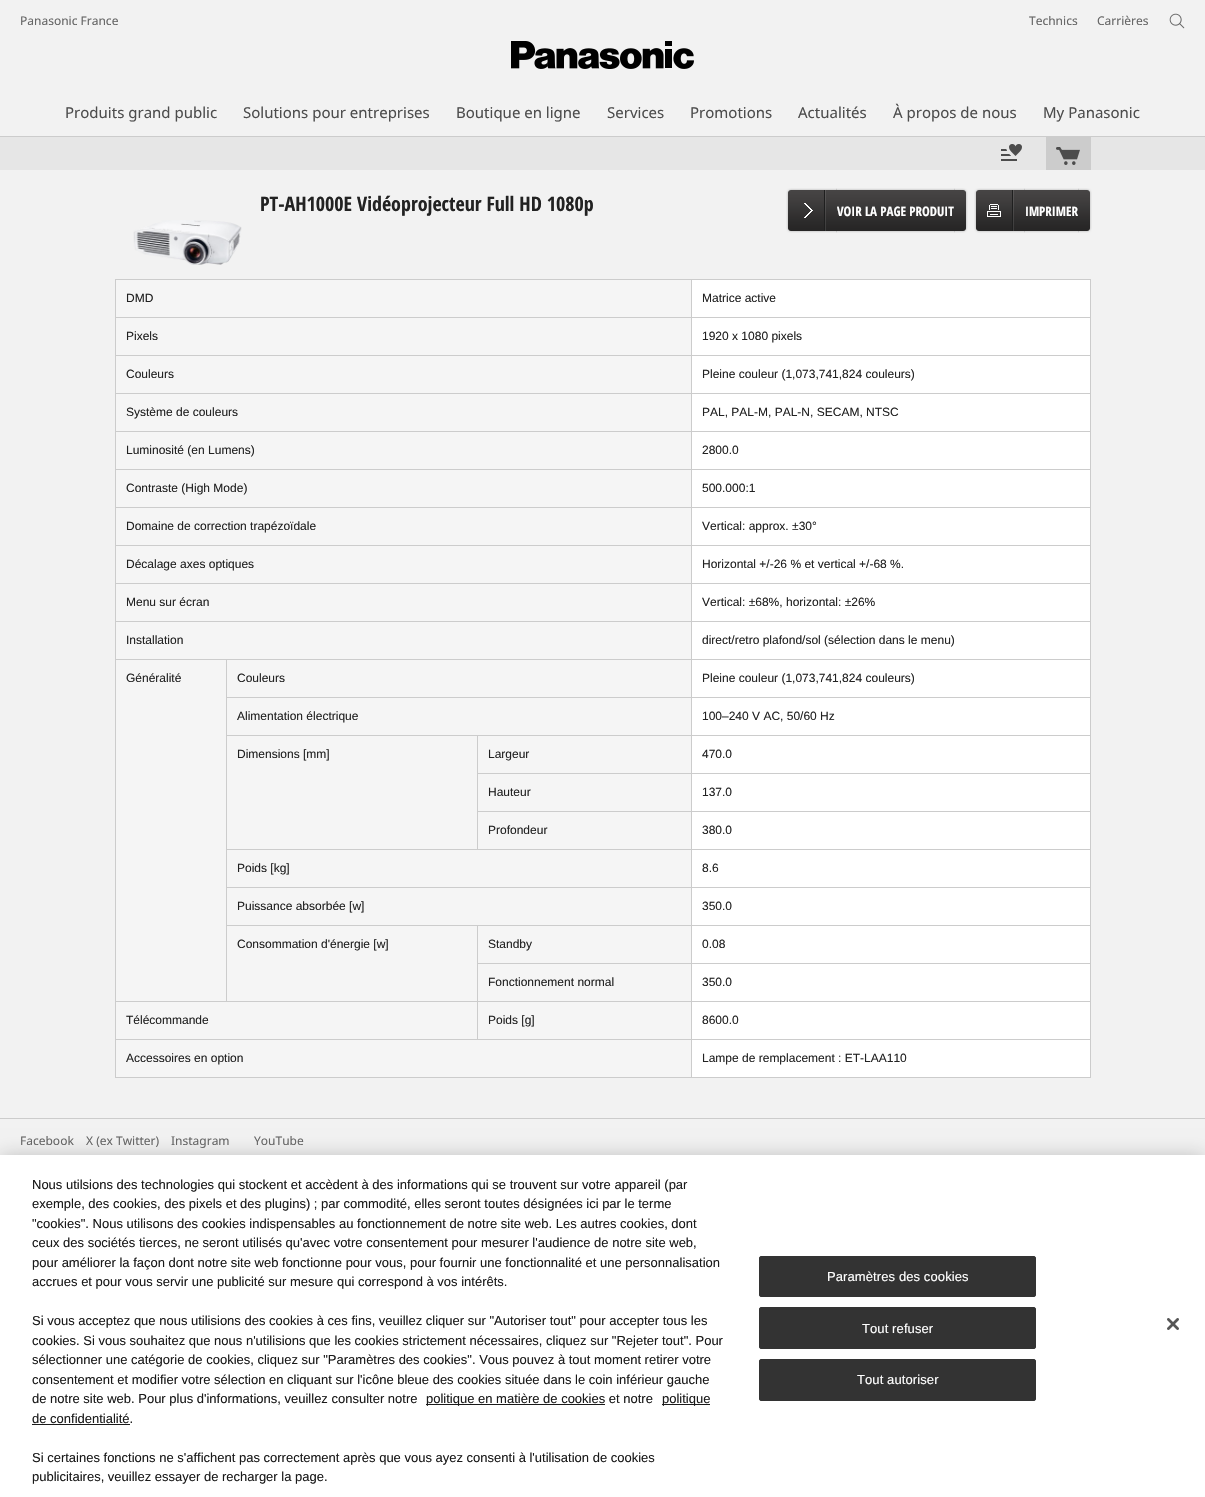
#include "include/core/SkBlurTypes.h"
#include "include/core/SkCanvas.h"
#include "include/core/SkData.h"
#include "include/core/SkFont.h"
#include "include/core/SkFontMgr.h"
#include "include/core/SkImage.h"
#include "include/core/SkMaskFilter.h"
#include "include/core/SkPaint.h"
#include "include/core/SkPathBuilder.h"
#include "include/core/SkTextBlob.h"
#include "include/effects/SkDashPathEffect.h"
#include "include/effects/SkGradientShader.h"
#include "include/utils/SkParsePath.h"

extern sk_sp<SkFontMgr> fontMgr;

void draw(SkCanvas* canvas) {
  SkPaint p;
  p.setAntiAlias(true);
  auto spacedText = [&](const char* s, float x, float y, const SkFont& font, const SkPaint& ink, float letter, float word) {
    std::vector<SkGlyphID> glyphs(font.countText(s, strlen(s), SkTextEncoding::kUTF8));
    std::vector<float> xs(glyphs.size());
    font.textToGlyphs(s, strlen(s), SkTextEncoding::kUTF8, glyphs);
    font.getXPos(glyphs, xs, x);
    float extra = 0;
    for (size_t i = 0; i < glyphs.size(); i++) {
      xs[i] += extra;
      extra += letter + word * (glyphs[i] == font.unicharToGlyph(' '));
    }
    canvas->drawTextBlob(SkTextBlob::MakeFromPosHGlyphs(glyphs, xs, y, font), 0, 0, ink);
  };
  canvas->clear(SkColorSetRGB(242, 242, 242));
  canvas->drawImageRect(SkImages::DeferredFromEncodedData(SkData::MakeFromFileName("images/1.png")), SkRect::MakeLTRB(1169, 13, 1185, 29), SkSamplingOptions());
  canvas->drawImageRect(SkImages::DeferredFromEncodedData(SkData::MakeFromFileName("images/2.png")), SkRect::MakeLTRB(511, 41, 694, 69), SkSamplingOptions());
  p.setColor(SkColorSetRGB(230, 230, 230));
  canvas->drawRect(SkRect::MakeLTRB(0, 137, 1205, 170), p);
  p.setColor(SkColorSetRGB(204, 204, 204));
  canvas->drawRect(SkRect::MakeLTRB(0, 136, 1205, 137), p);
  canvas->drawImageRect(SkImages::DeferredFromEncodedData(SkData::MakeFromFileName("images/4.png")), SkRect::MakeLTRB(1001, 149, 1017, 161), SkSamplingOptions());
  canvas->drawImageRect(SkImages::DeferredFromEncodedData(SkData::MakeFromFileName("images/3.png")), SkRect::MakeLTRB(1009, 144, 1022, 156), SkSamplingOptions());
  canvas->drawRect(SkRect::MakeLTRB(1046, 137, 1091, 170), p);
  canvas->drawImageRect(SkImages::DeferredFromEncodedData(SkData::MakeFromFileName("images/5.png")), SkRect::MakeLTRB(1056, 147, 1080, 165), SkSamplingOptions());
  canvas->drawImageRect(SkImages::DeferredFromEncodedData(SkData::MakeFromFileName("images/6.png")), SkRect::MakeLTRB(836, 188, 955, 233), SkSamplingOptions());
  canvas->drawImageRect(SkImages::DeferredFromEncodedData(SkData::MakeFromFileName("images/7.png")), SkRect::MakeLTRB(786, 188, 837, 233), SkSamplingOptions());
  canvas->drawImageRect(SkImages::DeferredFromEncodedData(SkData::MakeFromFileName("images/8.png")), SkRect::MakeLTRB(954, 188, 968, 233), SkSamplingOptions());
  canvas->drawImageRect(SkImages::DeferredFromEncodedData(SkData::MakeFromFileName("images/9.png")), SkRect::MakeLTRB(1024, 188, 1079, 233), SkSamplingOptions());
  canvas->drawImageRect(SkImages::DeferredFromEncodedData(SkData::MakeFromFileName("images/10.png")), SkRect::MakeLTRB(974, 188, 1025, 233), SkSamplingOptions());
  canvas->drawImageRect(SkImages::DeferredFromEncodedData(SkData::MakeFromFileName("images/8.png")), SkRect::MakeLTRB(1078, 188, 1092, 233), SkSamplingOptions());
  canvas->drawImageRect(SkImages::DeferredFromEncodedData(SkData::MakeFromFileName("images/11.png")), SkRect::MakeLTRB(133, 220, 242, 265), SkSamplingOptions());
  canvas->drawRect(SkRect::MakeLTRB(115, 279, 1091, 280), p);
  canvas->drawRect(SkRect::MakeLTRB(1090, 279, 1091, 1078), p);
  canvas->drawRect(SkRect::MakeLTRB(115, 1077, 1091, 1078), p);
  canvas->drawRect(SkRect::MakeLTRB(115, 279, 116, 1078), p);
  p.setColor(SkColorSetRGB(245, 245, 245));
  canvas->drawRect(SkRect::MakeLTRB(116, 280, 691, 317), p);
  p.setColor(SK_ColorWHITE);
  canvas->drawRect(SkRect::MakeLTRB(692, 280, 1090, 317), p);
  p.setColor(SkColorSetRGB(204, 204, 204));
  canvas->drawRect(SkRect::MakeLTRB(691, 317, 1091, 318), p);
  canvas->drawRect(SkRect::MakeLTRB(691, 355, 1091, 356), p);
  canvas->drawRect(SkRect::MakeLTRB(691, 393, 1091, 394), p);
  canvas->drawRect(SkRect::MakeLTRB(691, 431, 1091, 432), p);
  canvas->drawRect(SkRect::MakeLTRB(691, 469, 1091, 470), p);
  canvas->drawRect(SkRect::MakeLTRB(691, 507, 1091, 508), p);
  canvas->drawRect(SkRect::MakeLTRB(691, 545, 1091, 546), p);
  canvas->drawRect(SkRect::MakeLTRB(691, 583, 1091, 584), p);
  canvas->drawRect(SkRect::MakeLTRB(691, 621, 1091, 622), p);
  canvas->drawRect(SkRect::MakeLTRB(691, 659, 1091, 660), p);
  canvas->drawRect(SkRect::MakeLTRB(691, 697, 1091, 698), p);
  canvas->drawRect(SkRect::MakeLTRB(691, 735, 1091, 736), p);
  canvas->drawRect(SkRect::MakeLTRB(691, 773, 1091, 774), p);
  canvas->drawRect(SkRect::MakeLTRB(691, 811, 1091, 812), p);
  canvas->drawRect(SkRect::MakeLTRB(691, 849, 1091, 850), p);
  canvas->drawRect(SkRect::MakeLTRB(691, 887, 1091, 888), p);
  canvas->drawRect(SkRect::MakeLTRB(691, 925, 1091, 926), p);
  canvas->drawRect(SkRect::MakeLTRB(691, 963, 1091, 964), p);
  canvas->drawRect(SkRect::MakeLTRB(691, 1001, 1091, 1002), p);
  canvas->drawRect(SkRect::MakeLTRB(691, 1039, 1091, 1040), p);
  canvas->drawRect(SkRect::MakeLTRB(691, 1039, 692, 1078), p);
  canvas->drawRect(SkRect::MakeLTRB(115, 1039, 692, 1040), p);
  canvas->drawRect(SkRect::MakeLTRB(691, 1001, 692, 1040), p);
  canvas->drawRect(SkRect::MakeLTRB(477, 1001, 692, 1002), p);
  canvas->drawRect(SkRect::MakeLTRB(691, 963, 692, 1002), p);
  canvas->drawRect(SkRect::MakeLTRB(477, 963, 692, 964), p);
  canvas->drawRect(SkRect::MakeLTRB(691, 925, 692, 964), p);
  canvas->drawRect(SkRect::MakeLTRB(477, 925, 692, 926), p);
  canvas->drawRect(SkRect::MakeLTRB(691, 887, 692, 926), p);
  canvas->drawRect(SkRect::MakeLTRB(226, 887, 692, 888), p);
  canvas->drawRect(SkRect::MakeLTRB(691, 849, 692, 888), p);
  canvas->drawRect(SkRect::MakeLTRB(226, 849, 692, 850), p);
  canvas->drawRect(SkRect::MakeLTRB(691, 811, 692, 850), p);
  canvas->drawRect(SkRect::MakeLTRB(477, 811, 692, 812), p);
  canvas->drawRect(SkRect::MakeLTRB(691, 773, 692, 812), p);
  canvas->drawRect(SkRect::MakeLTRB(477, 773, 692, 774), p);
  canvas->drawRect(SkRect::MakeLTRB(691, 735, 692, 774), p);
  canvas->drawRect(SkRect::MakeLTRB(477, 735, 692, 736), p);
  canvas->drawRect(SkRect::MakeLTRB(691, 697, 692, 736), p);
  canvas->drawRect(SkRect::MakeLTRB(226, 697, 692, 698), p);
  canvas->drawRect(SkRect::MakeLTRB(691, 659, 692, 698), p);
  canvas->drawRect(SkRect::MakeLTRB(226, 659, 692, 660), p);
  canvas->drawRect(SkRect::MakeLTRB(691, 621, 692, 660), p);
  canvas->drawRect(SkRect::MakeLTRB(115, 621, 692, 622), p);
  canvas->drawRect(SkRect::MakeLTRB(691, 583, 692, 622), p);
  canvas->drawRect(SkRect::MakeLTRB(115, 583, 692, 584), p);
  canvas->drawRect(SkRect::MakeLTRB(691, 545, 692, 584), p);
  canvas->drawRect(SkRect::MakeLTRB(115, 545, 692, 546), p);
  canvas->drawRect(SkRect::MakeLTRB(691, 507, 692, 546), p);
  canvas->drawRect(SkRect::MakeLTRB(115, 507, 692, 508), p);
  canvas->drawRect(SkRect::MakeLTRB(691, 469, 692, 508), p);
  canvas->drawRect(SkRect::MakeLTRB(115, 469, 692, 470), p);
  canvas->drawRect(SkRect::MakeLTRB(691, 431, 692, 470), p);
  canvas->drawRect(SkRect::MakeLTRB(115, 431, 692, 432), p);
  canvas->drawRect(SkRect::MakeLTRB(691, 393, 692, 432), p);
  canvas->drawRect(SkRect::MakeLTRB(115, 393, 692, 394), p);
  canvas->drawRect(SkRect::MakeLTRB(691, 355, 692, 394), p);
  canvas->drawRect(SkRect::MakeLTRB(115, 355, 692, 356), p);
  canvas->drawRect(SkRect::MakeLTRB(691, 317, 692, 356), p);
  canvas->drawRect(SkRect::MakeLTRB(115, 317, 692, 318), p);
  canvas->drawRect(SkRect::MakeLTRB(691, 279, 692, 318), p);
  p.setColor(SkColorSetRGB(245, 245, 245));
  canvas->drawRect(SkRect::MakeLTRB(116, 318, 691, 355), p);
  p.setColor(SK_ColorWHITE);
  canvas->drawRect(SkRect::MakeLTRB(692, 318, 1090, 355), p);
  p.setColor(SkColorSetRGB(245, 245, 245));
  canvas->drawRect(SkRect::MakeLTRB(116, 356, 691, 393), p);
  p.setColor(SK_ColorWHITE);
  canvas->drawRect(SkRect::MakeLTRB(692, 356, 1090, 393), p);
  p.setColor(SkColorSetRGB(245, 245, 245));
  canvas->drawRect(SkRect::MakeLTRB(116, 394, 691, 431), p);
  p.setColor(SK_ColorWHITE);
  canvas->drawRect(SkRect::MakeLTRB(692, 394, 1090, 431), p);
  p.setColor(SkColorSetRGB(245, 245, 245));
  canvas->drawRect(SkRect::MakeLTRB(116, 432, 691, 469), p);
  p.setColor(SK_ColorWHITE);
  canvas->drawRect(SkRect::MakeLTRB(692, 432, 1090, 469), p);
  p.setColor(SkColorSetRGB(245, 245, 245));
  canvas->drawRect(SkRect::MakeLTRB(116, 470, 691, 507), p);
  p.setColor(SK_ColorWHITE);
  canvas->drawRect(SkRect::MakeLTRB(692, 470, 1090, 507), p);
  p.setColor(SkColorSetRGB(245, 245, 245));
  canvas->drawRect(SkRect::MakeLTRB(116, 508, 691, 545), p);
  p.setColor(SK_ColorWHITE);
  canvas->drawRect(SkRect::MakeLTRB(692, 508, 1090, 545), p);
  p.setColor(SkColorSetRGB(245, 245, 245));
  canvas->drawRect(SkRect::MakeLTRB(116, 546, 691, 583), p);
  p.setColor(SK_ColorWHITE);
  canvas->drawRect(SkRect::MakeLTRB(692, 546, 1090, 583), p);
  p.setColor(SkColorSetRGB(245, 245, 245));
  canvas->drawRect(SkRect::MakeLTRB(116, 584, 691, 621), p);
  p.setColor(SK_ColorWHITE);
  canvas->drawRect(SkRect::MakeLTRB(692, 584, 1090, 621), p);
  p.setColor(SkColorSetRGB(245, 245, 245));
  canvas->drawRect(SkRect::MakeLTRB(116, 622, 691, 659), p);
  p.setColor(SK_ColorWHITE);
  canvas->drawRect(SkRect::MakeLTRB(692, 622, 1090, 659), p);
  p.setColor(SkColorSetRGB(245, 245, 245));
  canvas->drawRect(SkRect::MakeLTRB(116, 660, 226, 1001), p);
  p.setColor(SkColorSetRGB(204, 204, 204));
  canvas->drawRect(SkRect::MakeLTRB(477, 811, 478, 850), p);
  canvas->drawRect(SkRect::MakeLTRB(477, 773, 478, 812), p);
  canvas->drawRect(SkRect::MakeLTRB(477, 735, 478, 774), p);
  canvas->drawRect(SkRect::MakeLTRB(226, 735, 478, 736), p);
  canvas->drawRect(SkRect::MakeLTRB(477, 1001, 478, 1040), p);
  canvas->drawRect(SkRect::MakeLTRB(115, 1001, 478, 1002), p);
  canvas->drawRect(SkRect::MakeLTRB(477, 963, 478, 1002), p);
  canvas->drawRect(SkRect::MakeLTRB(477, 925, 478, 964), p);
  canvas->drawRect(SkRect::MakeLTRB(226, 925, 478, 926), p);
  canvas->drawRect(SkRect::MakeLTRB(226, 925, 227, 1002), p);
  canvas->drawRect(SkRect::MakeLTRB(226, 887, 227, 926), p);
  canvas->drawRect(SkRect::MakeLTRB(226, 849, 227, 888), p);
  canvas->drawRect(SkRect::MakeLTRB(226, 735, 227, 850), p);
  canvas->drawRect(SkRect::MakeLTRB(226, 697, 227, 736), p);
  canvas->drawRect(SkRect::MakeLTRB(226, 659, 227, 698), p);
  canvas->drawRect(SkRect::MakeLTRB(115, 659, 227, 660), p);
  p.setColor(SkColorSetRGB(245, 245, 245));
  canvas->drawRect(SkRect::MakeLTRB(227, 660, 691, 697), p);
  p.setColor(SK_ColorWHITE);
  canvas->drawRect(SkRect::MakeLTRB(692, 660, 1090, 697), p);
  p.setColor(SkColorSetRGB(245, 245, 245));
  canvas->drawRect(SkRect::MakeLTRB(227, 698, 691, 735), p);
  p.setColor(SK_ColorWHITE);
  canvas->drawRect(SkRect::MakeLTRB(692, 698, 1090, 735), p);
  p.setColor(SkColorSetRGB(245, 245, 245));
  canvas->drawRect(SkRect::MakeLTRB(227, 736, 477, 849), p);
  canvas->drawRect(SkRect::MakeLTRB(478, 736, 691, 773), p);
  p.setColor(SK_ColorWHITE);
  canvas->drawRect(SkRect::MakeLTRB(692, 736, 1090, 773), p);
  p.setColor(SkColorSetRGB(245, 245, 245));
  canvas->drawRect(SkRect::MakeLTRB(478, 774, 691, 811), p);
  p.setColor(SK_ColorWHITE);
  canvas->drawRect(SkRect::MakeLTRB(692, 774, 1090, 811), p);
  p.setColor(SkColorSetRGB(245, 245, 245));
  canvas->drawRect(SkRect::MakeLTRB(478, 812, 691, 849), p);
  p.setColor(SK_ColorWHITE);
  canvas->drawRect(SkRect::MakeLTRB(692, 812, 1090, 849), p);
  p.setColor(SkColorSetRGB(245, 245, 245));
  canvas->drawRect(SkRect::MakeLTRB(227, 850, 691, 887), p);
  p.setColor(SK_ColorWHITE);
  canvas->drawRect(SkRect::MakeLTRB(692, 850, 1090, 887), p);
  p.setColor(SkColorSetRGB(245, 245, 245));
  canvas->drawRect(SkRect::MakeLTRB(227, 888, 691, 925), p);
  p.setColor(SK_ColorWHITE);
  canvas->drawRect(SkRect::MakeLTRB(692, 888, 1090, 925), p);
  p.setColor(SkColorSetRGB(245, 245, 245));
  canvas->drawRect(SkRect::MakeLTRB(227, 926, 477, 1001), p);
  canvas->drawRect(SkRect::MakeLTRB(478, 926, 691, 963), p);
  p.setColor(SK_ColorWHITE);
  canvas->drawRect(SkRect::MakeLTRB(692, 926, 1090, 963), p);
  p.setColor(SkColorSetRGB(245, 245, 245));
  canvas->drawRect(SkRect::MakeLTRB(478, 964, 691, 1001), p);
  p.setColor(SK_ColorWHITE);
  canvas->drawRect(SkRect::MakeLTRB(692, 964, 1090, 1001), p);
  p.setColor(SkColorSetRGB(245, 245, 245));
  canvas->drawRect(SkRect::MakeLTRB(116, 1002, 477, 1039), p);
  canvas->drawRect(SkRect::MakeLTRB(478, 1002, 691, 1039), p);
  p.setColor(SK_ColorWHITE);
  canvas->drawRect(SkRect::MakeLTRB(692, 1002, 1090, 1039), p);
  p.setColor(SkColorSetRGB(245, 245, 245));
  canvas->drawRect(SkRect::MakeLTRB(116, 1040, 691, 1077), p);
  p.setColor(SK_ColorWHITE);
  canvas->drawRect(SkRect::MakeLTRB(692, 1040, 1090, 1077), p);
  p.setColor(SkColorSetRGB(204, 204, 204));
  canvas->drawRect(SkRect::MakeLTRB(0, 1118, 1205, 1119), p);
  p.setColor(SkColorSetARGB(51, 0, 0, 0));
  p.setMaskFilter(SkMaskFilter::MakeBlur(kNormal_SkBlurStyle, 9));
  canvas->drawRect(SkRect::MakeLTRB(0, 1155, 1205, 1497), p);
  p.setMaskFilter(nullptr);
  p.setColor(SK_ColorWHITE);
  canvas->drawRect(SkRect::MakeLTRB(0, 1155, 1205, 1497), p);
  p.setColor(SkColorSetRGB(26, 26, 26));
  canvas->drawRect(SkRect::MakeLTRB(426, 1404, 605, 1405), p);
  canvas->drawRect(SkRect::MakeLTRB(662, 1404, 710, 1405), p);
  canvas->drawRect(SkRect::MakeLTRB(32, 1424, 130, 1425), p);
  p.setColor(SkColorSetRGB(51, 51, 51));
  canvas->drawRoundRect(SkRect::MakeLTRB(759.5f, 1256.5f, 1035.5f, 1296.5f), 1.5f, 1.5f, p);
  p.setStyle(SkPaint::kStroke_Style);
  p.setStrokeWidth(1);
  canvas->drawRoundRect(SkRect::MakeLTRB(759.5f, 1256.5f, 1035.5f, 1296.5f), 1.5f, 1.5f, p);
  p.setStyle(SkPaint::kFill_Style);
  canvas->drawRoundRect(SkRect::MakeLTRB(759.5f, 1307.5f, 1035.5f, 1348.5f), 1.5f, 1.5f, p);
  p.setStyle(SkPaint::kStroke_Style);
  canvas->drawRoundRect(SkRect::MakeLTRB(759.5f, 1307.5f, 1035.5f, 1348.5f), 1.5f, 1.5f, p);
  p.setStyle(SkPaint::kFill_Style);
  canvas->drawRoundRect(SkRect::MakeLTRB(759.5f, 1359.5f, 1035.5f, 1400.5f), 1.5f, 1.5f, p);
  p.setStyle(SkPaint::kStroke_Style);
  canvas->drawRoundRect(SkRect::MakeLTRB(759.5f, 1359.5f, 1035.5f, 1400.5f), 1.5f, 1.5f, p);
  canvas->drawImageRect(SkImages::DeferredFromEncodedData(SkData::MakeFromFileName("images/12.png")), SkRect::MakeLTRB(1167, 1318, 1179, 1330), SkSamplingOptions());
  SkFont font1(fontMgr->matchFamilyStyle("Noto Sans", SkFontStyle::Normal()), 12);
  font1.setSubpixel(true);
  p.setStyle(SkPaint::kFill_Style);
  p.setColor(SkColorSetRGB(102, 102, 102));
  canvas->drawString("Panasonic France", 20, 25, font1, p);
  canvas->drawString("Technics", 1029, 25, font1, p);
  canvas->drawString("Carrières", 1097, 25, font1, p);
  SkFont font2(fontMgr->matchFamilyStyle("Noto Sans", SkFontStyle::Normal()), 15);
  font2.setSubpixel(true);
  p.setColor(SkColorSetRGB(77, 77, 77));
  canvas->drawString("Produits grand public", 65, 118, font2, p);
  canvas->drawString("Solutions pour entreprises", 243, 118, font2, p);
  canvas->drawString("Boutique en ligne", 456, 118, font2, p);
  canvas->drawString("Services", 607, 118, font2, p);
  canvas->drawString("Promotions", 690, 118, font2, p);
  canvas->drawString("Actualités", 798, 118, font2, p);
  canvas->drawString("À propos de nous", 893, 118, font2, p);
  canvas->drawString("My Panasonic", 1043, 118, font2, p);
  SkFont font3(fontMgr->matchFamilyStyle("Open Sans Condensed", SkFontStyle::Bold()), 20);
  font3.setSubpixel(true);
  p.setColor(SkColorSetRGB(34, 34, 34));
  canvas->drawString("PT-AH1000E Vidéoprojecteur Full HD 1080p", 260, 211, font3, p);
  SkFont font4(fontMgr->matchFamilyStyle("Open Sans Condensed", SkFontStyle::Bold()), 13);
  font4.setSubpixel(true);
  p.setColor(SK_ColorWHITE);
  canvas->drawString("VOIR LA PAGE PRODUIT", 837, 216, font4, p);
  canvas->drawString("IMPRIMER", 1025, 216, font4, p);
  SkFont font5(fontMgr->matchFamilyStyle("Liberation Sans", SkFontStyle::Normal()), 12);
  font5.setSubpixel(true);
  p.setColor(SkColorSetRGB(34, 34, 34));
  canvas->drawString("DMD", 126, 302, font5, p);
  canvas->drawString("Matrice active", 702, 302, font5, p);
  canvas->drawString("Pixels", 126, 340, font5, p);
  canvas->drawString("1920 x 1080 pixels", 702, 340, font5, p);
  canvas->drawString("Couleurs", 126, 378, font5, p);
  canvas->drawString("Pleine couleur (1,073,741,824 couleurs)", 702, 378, font5, p);
  canvas->drawString("Système de couleurs", 126, 416, font5, p);
  canvas->drawString("PAL, PAL-M, PAL-N, SECAM, NTSC", 702, 416, font5, p);
  canvas->drawString("Luminosité (en Lumens)", 126, 454, font5, p);
  canvas->drawString("2800.0", 702, 454, font5, p);
  canvas->drawString("Contraste (High Mode)", 126, 492, font5, p);
  canvas->drawString("500.000:1", 702, 492, font5, p);
  canvas->drawString("Domaine de correction trapézoïdale", 126, 530, font5, p);
  canvas->drawString("Vertical: approx. ±30°", 702, 530, font5, p);
  canvas->drawString("Décalage axes optiques", 126, 568, font5, p);
  canvas->drawString("Horizontal +/-26 % et vertical +/-68 %.", 702, 568, font5, p);
  canvas->drawString("Menu sur écran", 126, 606, font5, p);
  canvas->drawString("Vertical: ±68%, horizontal: ±26%", 702, 606, font5, p);
  canvas->drawString("Installation", 126, 644, font5, p);
  canvas->drawString("direct/retro plafond/sol (sélection dans le menu)", 702, 644, font5, p);
  canvas->drawString("Généralité", 126, 682, font5, p);
  canvas->drawString("Couleurs", 237, 682, font5, p);
  canvas->drawString("Pleine couleur (1,073,741,824 couleurs)", 702, 682, font5, p);
  canvas->drawString("Alimentation électrique", 237, 720, font5, p);
  canvas->drawString("100–240 V AC, 50/60 Hz", 702, 720, font5, p);
  canvas->drawString("Dimensions [mm]", 237, 758, font5, p);
  canvas->drawString("Largeur", 488, 758, font5, p);
  canvas->drawString("470.0", 702, 758, font5, p);
  canvas->drawString("Hauteur", 488, 796, font5, p);
  canvas->drawString("137.0", 702, 796, font5, p);
  canvas->drawString("Profondeur", 488, 834, font5, p);
  canvas->drawString("380.0", 702, 834, font5, p);
  canvas->drawString("Poids [kg]", 237, 872, font5, p);
  canvas->drawString("8.6", 702, 872, font5, p);
  canvas->drawString("Puissance absorbée [w]", 237, 910, font5, p);
  canvas->drawString("350.0", 702, 910, font5, p);
  canvas->drawString("Consommation d'énergie [w]", 237, 948, font5, p);
  canvas->drawString("Standby", 488, 948, font5, p);
  canvas->drawString("0.08", 702, 948, font5, p);
  canvas->drawString("Fonctionnement normal", 488, 986, font5, p);
  canvas->drawString("350.0", 702, 986, font5, p);
  canvas->drawString("Télécommande", 126, 1024, font5, p);
  canvas->drawString("Poids [g]", 488, 1024, font5, p);
  canvas->drawString("8600.0", 702, 1024, font5, p);
  canvas->drawString("Accessoires en option", 126, 1062, font5, p);
  canvas->drawString("Lampe de remplacement : ET-LAA110", 702, 1062, font5, p);
  p.setColor(SkColorSetRGB(102, 102, 102));
  canvas->drawString("Facebook", 20, 1145, font1, p);
  canvas->drawString("X (ex Twitter)", 86, 1145, font1, p);
  canvas->drawString("Instagram", 171, 1145, font1, p);
  canvas->drawString("YouTube", 254, 1145, font1, p);
  SkFont font6(fontMgr->matchFamilyStyle("Liberation Sans", SkFontStyle::Normal()), 13);
  font6.setSubpixel(true);
  p.setColor(SkColorSetRGB(26, 26, 26));
  canvas->drawString("Nous utilsions des technologies qui stockent et accèdent à des informations qui se trouvent sur votre appareil (par", 32, 1189, font6, p);
  canvas->drawString("exemple, des cookies, des pixels et des plugins) ; par commodité, elles seront toutes désignées ici par le terme", 32, 1208, font6, p);
  canvas->drawString("\"cookies\". Nous utilisons des cookies indispensables au fonctionnement de notre site web. Les autres cookies, dont", 32, 1228, font6, p);
  canvas->drawString("ceux des sociétés tierces, ne seront utilisés qu'avec votre consentement pour mesurer l'audience de notre site web,", 32, 1247, font6, p);
  canvas->drawString("pour améliorer la façon dont notre site web fonctionne pour vous, pour fournir une fonctionnalité et une personnalisation", 32, 1267, font6, p);
  canvas->drawString("accrues et pour vous servir une publicité sur mesure qui correspond à vos intérêts.", 32, 1286, font6, p);
  canvas->drawString("Si vous acceptez que nous utilisions des cookies à ces fins, veuillez cliquer sur \"Autoriser tout\" pour accepter tous les", 32, 1325, font6, p);
  canvas->drawString("cookies. Si vous souhaitez que nous n'utilisions que les cookies strictement nécessaires, cliquez sur \"Rejeter tout\". Pour", 32, 1345, font6, p);
  canvas->drawString("sélectionner une catégorie de cookies, cliquez sur \"Paramètres des cookies\". Vous pouvez à tout moment retirer votre", 32, 1364, font6, p);
  canvas->drawString("consentement et modifier votre sélection en cliquant sur l'icône bleue des cookies située dans le coin inférieur gauche", 32, 1384, font6, p);
  canvas->drawString("de notre site web. Pour plus d'informations, veuillez consulter notre", 32, 1403, font6, p);
  canvas->drawString("politique en matière de cookies et notre", 426, 1403, font6, p);
  canvas->drawString("politique", 662, 1403, font6, p);
  canvas->drawString("de confidentialité.", 32, 1423, font6, p);
  canvas->drawString("Si certaines fonctions ne s'affichent pas correctement après que vous ayez consenti à l'utilisation de cookies", 32, 1462, font6, p);
  canvas->drawString("publicitaires, veuillez essayer de recharger la page.", 32, 1481, font6, p);
  p.setColor(SK_ColorWHITE);
  spacedText("Paramètres des cookies", 827, 1281, font6, p, 0.1f, 0);
  spacedText("Tout refuser", 862, 1333, font6, p, 0.1f, 0);
  spacedText("Tout autoriser", 857, 1384, font6, p, 0.1f, 0);
}
